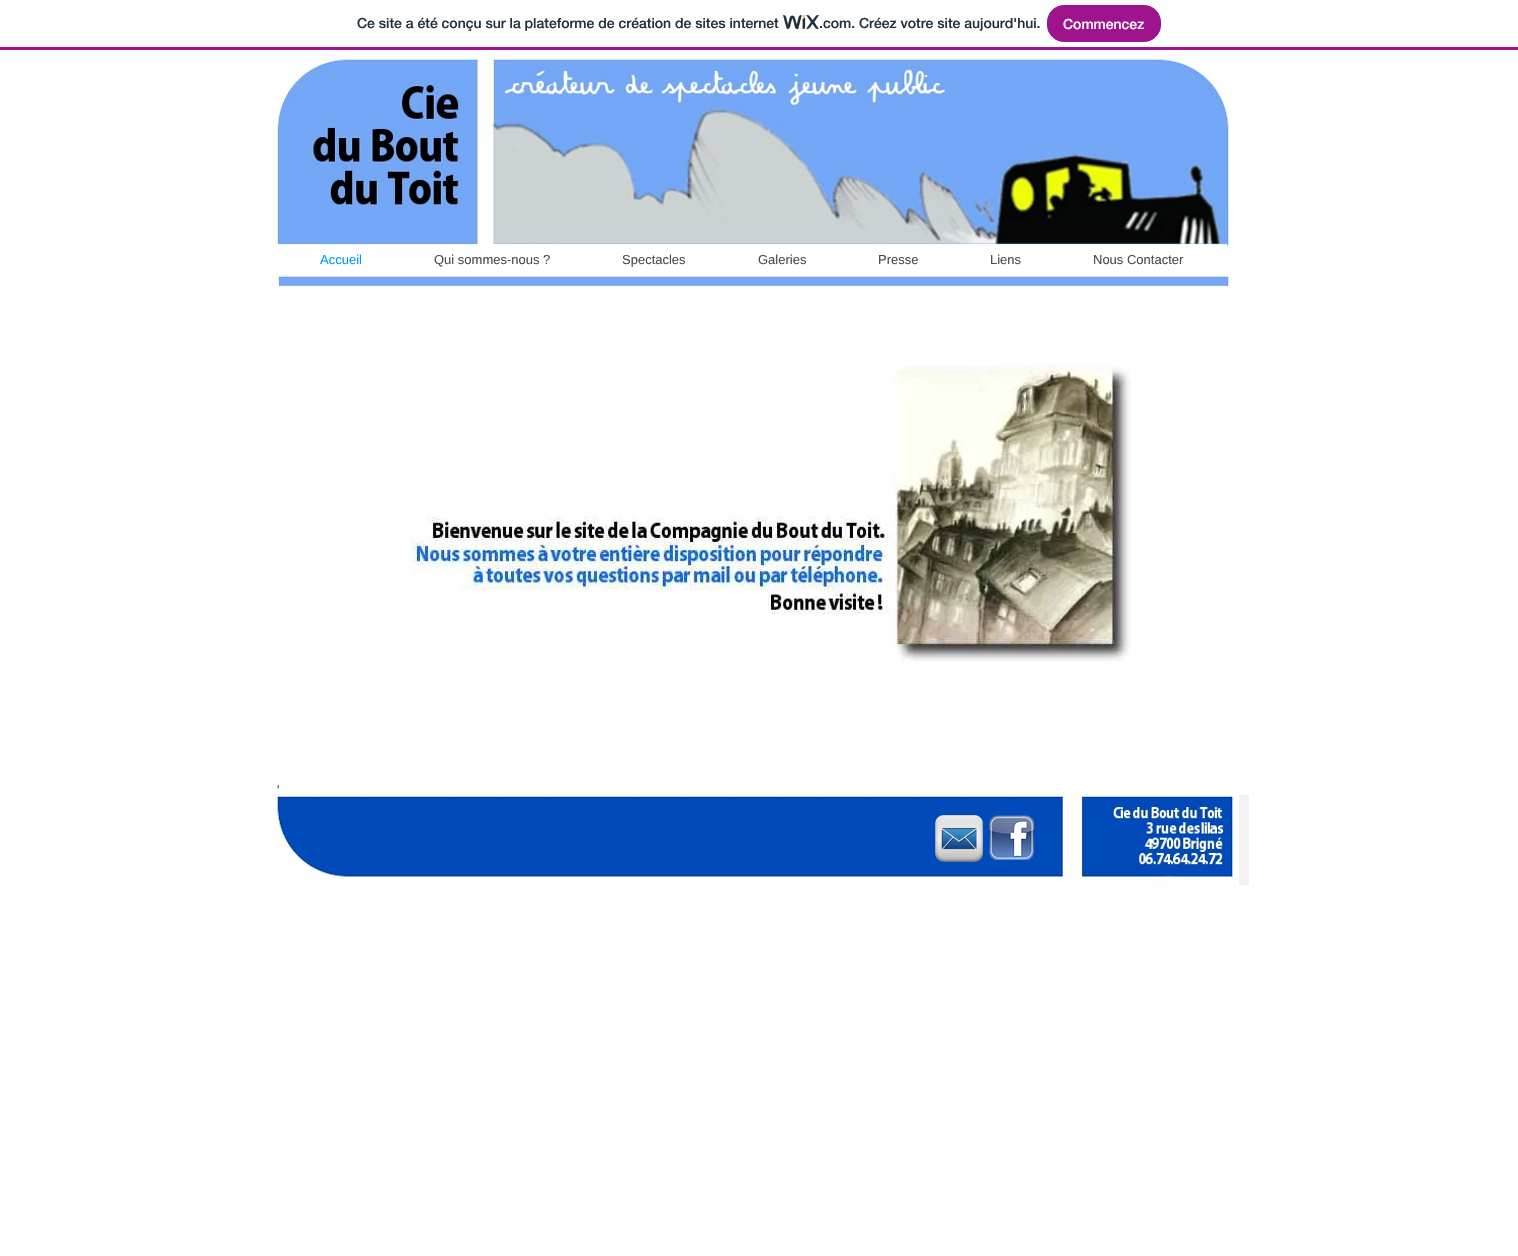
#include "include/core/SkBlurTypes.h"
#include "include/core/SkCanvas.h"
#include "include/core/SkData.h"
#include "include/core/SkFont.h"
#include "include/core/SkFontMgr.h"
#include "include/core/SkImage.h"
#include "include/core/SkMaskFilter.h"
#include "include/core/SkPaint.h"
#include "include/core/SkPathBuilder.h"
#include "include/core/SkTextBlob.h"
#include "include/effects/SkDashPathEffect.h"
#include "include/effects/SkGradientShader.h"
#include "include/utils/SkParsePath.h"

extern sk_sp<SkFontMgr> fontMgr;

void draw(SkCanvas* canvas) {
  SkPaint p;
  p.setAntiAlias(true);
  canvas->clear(SK_ColorWHITE);
  p.setColor(SkColorSetRGB(160, 19, 142));
  canvas->drawRect(SkRect::MakeLTRB(0, 47, 1518, 50), p);
  canvas->drawImageRect(SkImages::DeferredFromEncodedData(SkData::MakeFromFileName("images/1.png")), SkRect::MakeLTRB(783, 15, 819, 30), SkSamplingOptions());
  canvas->drawRoundRect(SkRect::MakeLTRB(1047.5f, 5.5f, 1160.5f, 41.5f), 16.5f, 16.5f, p);
  p.setStyle(SkPaint::kStroke_Style);
  p.setStrokeWidth(1);
  canvas->drawRoundRect(SkRect::MakeLTRB(1047.5f, 5.5f, 1160.5f, 41.5f), 16.5f, 16.5f, p);
  canvas->drawImageRect(SkImages::DeferredFromEncodedData(SkData::MakeFromFileName("images/2.png")), SkRect::MakeLTRB(275, 57, 1234, 289), SkSamplingOptions());
  p.setStyle(SkPaint::kFill_Style);
  p.setColor(SK_ColorWHITE);
  canvas->drawRect(SkRect::MakeLTRB(275, 245, 289, 275), p);
  canvas->drawImageRect(SkImages::DeferredFromEncodedData(SkData::MakeFromFileName("images/3.png")), SkRect::MakeLTRB(410, 364, 1131, 662), SkSamplingOptions());
  canvas->drawImageRect(SkImages::DeferredFromEncodedData(SkData::MakeFromFileName("images/4.png")), SkRect::MakeLTRB(269, 785, 1239, 885), SkSamplingOptions());
  canvas->drawImageRect(SkImages::DeferredFromEncodedData(SkData::MakeFromFileName("images/5.png")), SkRect::MakeLTRB(935, 815, 983, 862), SkSamplingOptions());
  canvas->drawImageRect(SkImages::DeferredFromEncodedData(SkData::MakeFromFileName("images/6.png")), SkRect::MakeLTRB(989, 815, 1035, 861), SkSamplingOptions());
  p.setColor(SkColorSetRGB(243, 243, 243));
  canvas->drawRect(SkRect::MakeLTRB(1239, 795, 1249, 885), p);
  SkFont font1(fontMgr->matchFamilyStyle("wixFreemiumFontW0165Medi", SkFontStyle(500, SkFontStyle::kNormal_Width, SkFontStyle::kUpright_Slant)), 14);
  font1.setSubpixel(true);
  p.setColor(SkColorSetRGB(32, 48, 60));
  canvas->drawString("Ce site a été conçu sur la plateforme de création de sites internet", 357, 28, font1, p);
  canvas->drawString(".com. Créez votre site aujourd'hui.", 819, 28, font1, p);
  p.setColor(SK_ColorWHITE);
  canvas->drawString("Commencez", 1063, 29, font1, p);
  SkFont font2(fontMgr->matchFamilyStyle("Liberation Sans", SkFontStyle::Normal()), 13);
  font2.setSubpixel(true);
  p.setColor(SkColorSetRGB(0, 153, 255));
  canvas->drawString("Accueil", 320, 264, font2, p);
  p.setColor(SkColorSetRGB(74, 74, 74));
  canvas->drawString("Qui sommes-nous ?", 434, 264, font2, p);
  canvas->drawString("Spectacles", 622, 264, font2, p);
  canvas->drawString("Galeries", 758, 264, font2, p);
  canvas->drawString("Presse", 878, 264, font2, p);
  canvas->drawString("Liens", 990, 264, font2, p);
  canvas->drawString("Nous Contacter", 1093, 264, font2, p);
}
